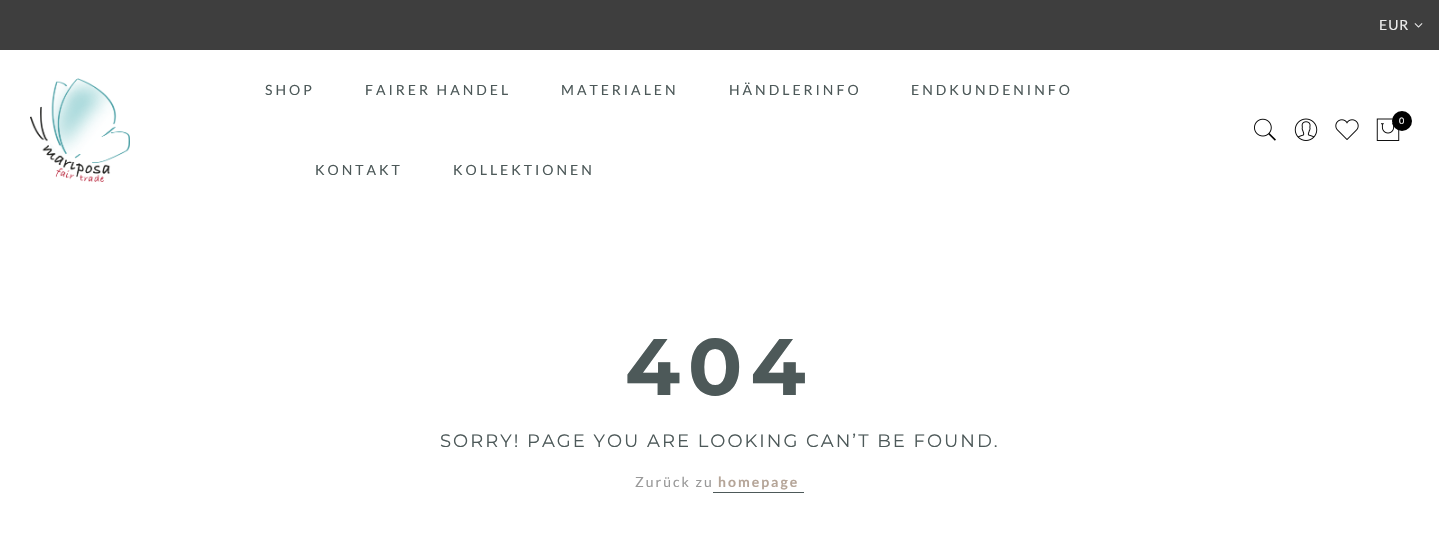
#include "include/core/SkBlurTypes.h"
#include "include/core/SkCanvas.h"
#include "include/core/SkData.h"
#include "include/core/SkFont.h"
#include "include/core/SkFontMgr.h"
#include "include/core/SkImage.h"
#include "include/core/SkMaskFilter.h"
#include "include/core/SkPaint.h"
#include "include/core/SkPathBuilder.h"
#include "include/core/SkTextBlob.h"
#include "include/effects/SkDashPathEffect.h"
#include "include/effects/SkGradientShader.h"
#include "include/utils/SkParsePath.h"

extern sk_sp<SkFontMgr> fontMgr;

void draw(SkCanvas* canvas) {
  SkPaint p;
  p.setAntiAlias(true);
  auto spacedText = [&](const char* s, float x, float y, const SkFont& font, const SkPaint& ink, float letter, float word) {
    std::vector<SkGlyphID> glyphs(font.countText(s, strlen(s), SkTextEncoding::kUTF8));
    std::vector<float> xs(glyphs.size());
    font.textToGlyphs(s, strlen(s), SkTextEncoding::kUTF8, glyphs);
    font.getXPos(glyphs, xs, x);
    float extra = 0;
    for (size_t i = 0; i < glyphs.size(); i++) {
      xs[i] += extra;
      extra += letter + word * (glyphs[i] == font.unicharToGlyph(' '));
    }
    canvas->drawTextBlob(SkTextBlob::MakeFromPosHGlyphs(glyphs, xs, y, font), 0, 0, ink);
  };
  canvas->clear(SK_ColorWHITE);
  p.setColor(SkColorSetRGB(62, 62, 62));
  canvas->drawRect(SkRect::MakeLTRB(0, 0, 1439, 50), p);
  canvas->drawImageRect(SkImages::DeferredFromEncodedData(SkData::MakeFromFileName("images/1.png")), SkRect::MakeLTRB(1414, 23, 1423, 28), SkSamplingOptions());
  canvas->drawImageRect(SkImages::DeferredFromEncodedData(SkData::MakeFromFileName("images/2.png")), SkRect::MakeLTRB(30, 78, 130, 182), SkSamplingOptions());
  canvas->drawImageRect(SkImages::DeferredFromEncodedData(SkData::MakeFromFileName("images/3.png")), SkRect::MakeLTRB(1254, 118, 1276, 141), SkSamplingOptions());
  canvas->drawImageRect(SkImages::DeferredFromEncodedData(SkData::MakeFromFileName("images/4.png")), SkRect::MakeLTRB(1294, 118, 1318, 141), SkSamplingOptions());
  canvas->drawImageRect(SkImages::DeferredFromEncodedData(SkData::MakeFromFileName("images/5.png")), SkRect::MakeLTRB(1335, 119, 1359, 140), SkSamplingOptions());
  canvas->drawImageRect(SkImages::DeferredFromEncodedData(SkData::MakeFromFileName("images/6.png")), SkRect::MakeLTRB(1376, 118, 1400, 141), SkSamplingOptions());
  p.setColor(SK_ColorBLACK);
  canvas->drawCircle(1402, 121, 10, p);
  p.setColor(SkColorSetRGB(77, 89, 89));
  canvas->drawRect(SkRect::MakeLTRB(713, 492, 804, 493), p);
  SkFont font1(fontMgr->matchFamilyStyle("Lato", SkFontStyle::Normal()), 14);
  font1.setSubpixel(true);
  p.setColor(SkColorSetRGB(236, 236, 236));
  spacedText("EUR", 1379, 30, font1, p, 1, 0);
  p.setColor(SkColorSetRGB(77, 89, 89));
  spacedText("SHOP", 265, 95, font1, p, 3, 0);
  spacedText("FAIRER HANDEL", 365, 95, font1, p, 3, 0);
  spacedText("MATERIALEN", 561, 95, font1, p, 3, 0);
  spacedText("HÄNDLERINFO", 729, 95, font1, p, 3, 0);
  spacedText("ENDKUNDENINFO", 911, 95, font1, p, 3, 0);
  spacedText("KONTAKT", 315, 175, font1, p, 3, 0);
  spacedText("KOLLEKTIONEN", 453, 175, font1, p, 3, 0);
  SkFont font2(fontMgr->matchFamilyStyle("Lato", SkFontStyle::Normal()), 9);
  font2.setSubpixel(true);
  p.setColor(SK_ColorWHITE);
  spacedText("0", 1399, 124, font2, p, 1, 0);
  SkFont font3(fontMgr->matchFamilyStyle("Montserrat", SkFontStyle::Bold()), 80);
  font3.setSubpixel(true);
  p.setColor(SkColorSetRGB(77, 89, 89));
  spacedText("404", 625, 395, font3, p, 8, 0);
  SkFont font4(fontMgr->matchFamilyStyle("Montserrat", SkFontStyle::Normal()), 18);
  font4.setSubpixel(true);
  spacedText("SORRY! PAGE YOU ARE LOOKING CAN’T BE FOUND.", 440, 447, font4, p, 2, 0);
  p.setColor(SkColorSetRGB(153, 153, 153));
  spacedText("Zurück zu", 635, 487, font1, p, 2, 0);
  SkFont font5(fontMgr->matchFamilyStyle("Lato", SkFontStyle::Bold()), 14);
  font5.setSubpixel(true);
  p.setColor(SkColorSetRGB(181, 165, 152));
  spacedText("homepage", 718, 487, font5, p, 2, 0);
}
